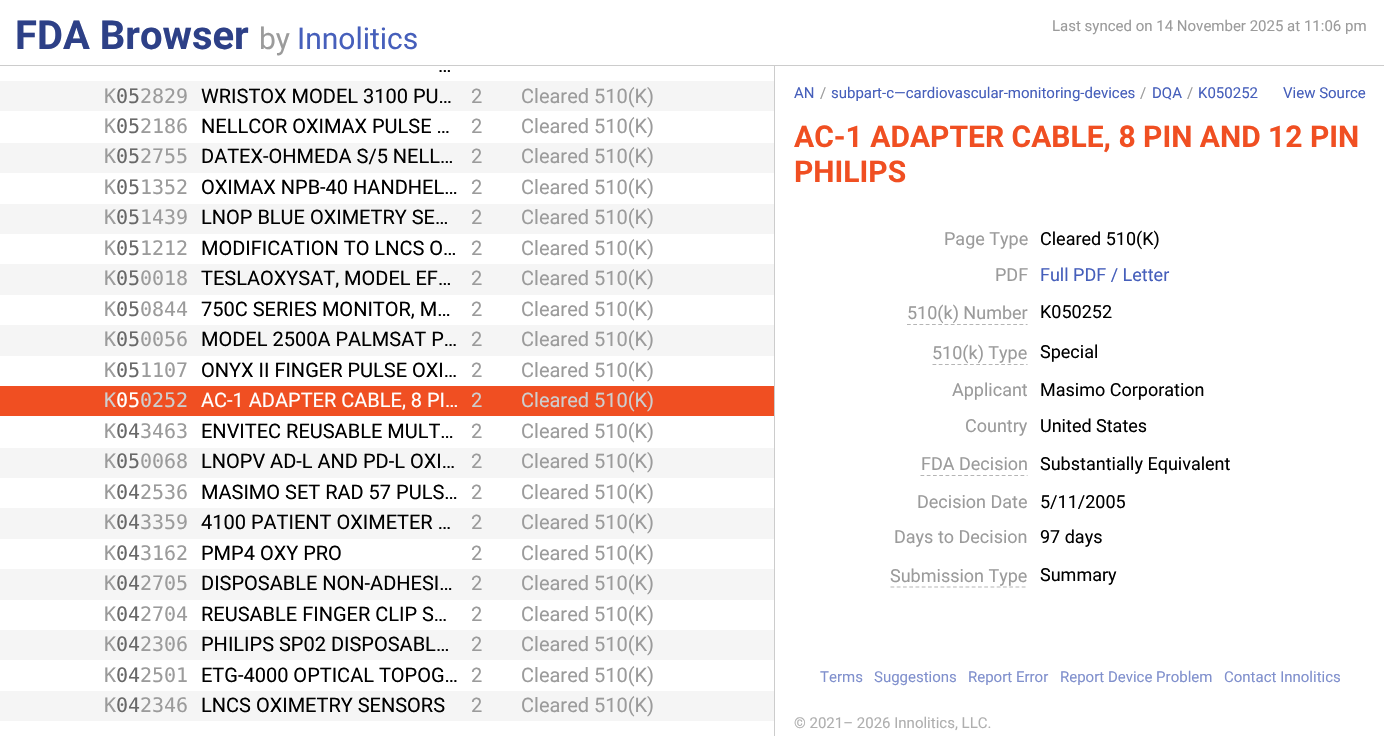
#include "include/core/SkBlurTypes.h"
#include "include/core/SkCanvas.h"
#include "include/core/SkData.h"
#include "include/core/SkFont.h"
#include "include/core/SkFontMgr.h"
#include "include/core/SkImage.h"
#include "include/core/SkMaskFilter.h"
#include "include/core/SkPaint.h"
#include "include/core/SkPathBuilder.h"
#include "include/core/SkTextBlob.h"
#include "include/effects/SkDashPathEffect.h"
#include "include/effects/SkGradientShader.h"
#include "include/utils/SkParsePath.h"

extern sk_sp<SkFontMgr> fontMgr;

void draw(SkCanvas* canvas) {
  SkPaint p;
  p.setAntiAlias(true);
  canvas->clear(SK_ColorWHITE);
  p.setColor(SkColorSetRGB(204, 204, 204));
  canvas->drawRect(SkRect::MakeLTRB(0, 65, 1384, 66), p);
  canvas->drawRect(SkRect::MakeLTRB(774, 66, 775, 736), p);
  p.setColor(SkColorSetRGB(245, 245, 245));
  canvas->drawRect(SkRect::MakeLTRB(0, 81, 774, 721), p);
  p.setColor(SK_ColorWHITE);
  canvas->drawRect(SkRect::MakeLTRB(0, 111, 774, 143), p);
  canvas->drawRect(SkRect::MakeLTRB(0, 173, 774, 204), p);
  canvas->drawRect(SkRect::MakeLTRB(0, 234, 774, 264), p);
  canvas->drawRect(SkRect::MakeLTRB(0, 295, 774, 325), p);
  canvas->drawRect(SkRect::MakeLTRB(0, 356, 774, 386), p);
  p.setColor(SkColorSetRGB(240, 79, 34));
  canvas->drawRect(SkRect::MakeLTRB(0, 386, 774, 416), p);
  p.setColor(SK_ColorWHITE);
  canvas->drawRect(SkRect::MakeLTRB(0, 416, 774, 448), p);
  canvas->drawRect(SkRect::MakeLTRB(0, 478, 774, 508), p);
  canvas->drawRect(SkRect::MakeLTRB(0, 539, 774, 569), p);
  canvas->drawRect(SkRect::MakeLTRB(0, 600, 774, 630), p);
  canvas->drawRect(SkRect::MakeLTRB(0, 660, 774, 691), p);
  p.setStyle(SkPaint::kStroke_Style);
  p.setStrokeWidth(1.2f);
  p.setColor(SkColorSetRGB(181, 181, 181));
  p.setPathEffect(SkDashPathEffect::Make({{3.75f, 2.5f}}, 0));
  canvas->drawPath(SkPathBuilder().moveTo(907, 324.5f).lineTo(1027.5f, 324.5f).detach(), p);
  p.setPathEffect(nullptr);
  p.setPathEffect(SkDashPathEffect::Make({{3.75f, 2.5f}}, 0));
  canvas->drawPath(SkPathBuilder().moveTo(932.5f, 364.5f).lineTo(1027.5f, 364.5f).detach(), p);
  p.setPathEffect(nullptr);
  p.setPathEffect(SkDashPathEffect::Make({{3.75f, 2.5f}}, 0));
  canvas->drawPath(SkPathBuilder().moveTo(920.5f, 475.5f).lineTo(1027.5f, 475.5f).detach(), p);
  p.setPathEffect(nullptr);
  p.setPathEffect(SkDashPathEffect::Make({{3.75f, 2.5f}}, 0));
  canvas->drawPath(SkPathBuilder().moveTo(890.5f, 587).lineTo(1027.5f, 587).detach(), p);
  p.setPathEffect(nullptr);
  SkFont font1(fontMgr->matchFamilyStyle("Roboto", SkFontStyle::Bold()), 40);
  font1.setSubpixel(true);
  p.setStyle(SkPaint::kFill_Style);
  p.setColor(SkColorSetRGB(45, 64, 135));
  canvas->drawString("FDA Browser", 15, 49, font1, p);
  SkFont font2(fontMgr->matchFamilyStyle("Roboto", SkFontStyle::Normal()), 30);
  font2.setSubpixel(true);
  p.setColor(SkColorSetRGB(155, 155, 155));
  canvas->drawString("by", 259, 49, font2, p);
  p.setColor(SkColorSetRGB(70, 95, 187));
  canvas->drawString("Innolitics", 297, 49, font2, p);
  SkFont font3(fontMgr->matchFamilyStyle("Roboto", SkFontStyle::Normal()), 20);
  font3.setSubpixel(true);
  p.setColor(SK_ColorBLACK);
  canvas->drawString("…", 438, 72, font3, p);
  SkFont font4(fontMgr->matchFamilyStyle("DejaVu Sans Mono", SkFontStyle::Normal()), 20);
  font4.setSubpixel(true);
  p.setColor(SkColorSetRGB(155, 155, 155));
  canvas->drawString("K", 104, 103, font4, p);
  p.setColor(SkColorSetRGB(104, 104, 104));
  canvas->drawString("05", 116, 103, font4, p);
  p.setColor(SkColorSetRGB(155, 155, 155));
  canvas->drawString("2829", 140, 103, font4, p);
  p.setColor(SK_ColorBLACK);
  canvas->drawString("WRISTOX MODEL 3100 PU…", 201, 103, font3, p);
  p.setColor(SkColorSetRGB(155, 155, 155));
  canvas->drawString("2", 471, 103, font3, p);
  canvas->drawString("Cleared 510(K)", 521, 103, font3, p);
  canvas->drawString("K", 104, 133, font4, p);
  p.setColor(SkColorSetRGB(104, 104, 104));
  canvas->drawString("05", 116, 133, font4, p);
  p.setColor(SkColorSetRGB(155, 155, 155));
  canvas->drawString("2186", 140, 133, font4, p);
  p.setColor(SK_ColorBLACK);
  canvas->drawString("NELLCOR OXIMAX PULSE …", 201, 133, font3, p);
  p.setColor(SkColorSetRGB(155, 155, 155));
  canvas->drawString("2", 471, 133, font3, p);
  canvas->drawString("Cleared 510(K)", 521, 133, font3, p);
  canvas->drawString("K", 104, 163, font4, p);
  p.setColor(SkColorSetRGB(104, 104, 104));
  canvas->drawString("05", 116, 163, font4, p);
  p.setColor(SkColorSetRGB(155, 155, 155));
  canvas->drawString("2755", 140, 163, font4, p);
  p.setColor(SK_ColorBLACK);
  canvas->drawString("DATEX-OHMEDA S/5 NELL…", 201, 163, font3, p);
  p.setColor(SkColorSetRGB(155, 155, 155));
  canvas->drawString("2", 471, 163, font3, p);
  canvas->drawString("Cleared 510(K)", 521, 163, font3, p);
  canvas->drawString("K", 104, 194, font4, p);
  p.setColor(SkColorSetRGB(104, 104, 104));
  canvas->drawString("05", 116, 194, font4, p);
  p.setColor(SkColorSetRGB(155, 155, 155));
  canvas->drawString("1352", 140, 194, font4, p);
  p.setColor(SK_ColorBLACK);
  canvas->drawString("OXIMAX NPB-40 HANDHEL…", 201, 194, font3, p);
  p.setColor(SkColorSetRGB(155, 155, 155));
  canvas->drawString("2", 471, 194, font3, p);
  canvas->drawString("Cleared 510(K)", 521, 194, font3, p);
  canvas->drawString("K", 104, 224, font4, p);
  p.setColor(SkColorSetRGB(104, 104, 104));
  canvas->drawString("05", 116, 224, font4, p);
  p.setColor(SkColorSetRGB(155, 155, 155));
  canvas->drawString("1439", 140, 224, font4, p);
  p.setColor(SK_ColorBLACK);
  canvas->drawString("LNOP BLUE OXIMETRY SE…", 201, 224, font3, p);
  p.setColor(SkColorSetRGB(155, 155, 155));
  canvas->drawString("2", 471, 224, font3, p);
  canvas->drawString("Cleared 510(K)", 521, 224, font3, p);
  canvas->drawString("K", 104, 255, font4, p);
  p.setColor(SkColorSetRGB(104, 104, 104));
  canvas->drawString("05", 116, 255, font4, p);
  p.setColor(SkColorSetRGB(155, 155, 155));
  canvas->drawString("1212", 140, 255, font4, p);
  p.setColor(SK_ColorBLACK);
  canvas->drawString("MODIFICATION TO LNCS O…", 201, 255, font3, p);
  p.setColor(SkColorSetRGB(155, 155, 155));
  canvas->drawString("2", 471, 255, font3, p);
  canvas->drawString("Cleared 510(K)", 521, 255, font3, p);
  canvas->drawString("K", 104, 285, font4, p);
  p.setColor(SkColorSetRGB(104, 104, 104));
  canvas->drawString("05", 116, 285, font4, p);
  p.setColor(SkColorSetRGB(155, 155, 155));
  canvas->drawString("0018", 140, 285, font4, p);
  p.setColor(SK_ColorBLACK);
  canvas->drawString("TESLAOXYSAT, MODEL EF…", 201, 285, font3, p);
  p.setColor(SkColorSetRGB(155, 155, 155));
  canvas->drawString("2", 471, 285, font3, p);
  canvas->drawString("Cleared 510(K)", 521, 285, font3, p);
  canvas->drawString("K", 104, 316, font4, p);
  p.setColor(SkColorSetRGB(104, 104, 104));
  canvas->drawString("05", 116, 316, font4, p);
  p.setColor(SkColorSetRGB(155, 155, 155));
  canvas->drawString("0844", 140, 316, font4, p);
  p.setColor(SK_ColorBLACK);
  canvas->drawString("750C SERIES MONITOR, M…", 201, 316, font3, p);
  p.setColor(SkColorSetRGB(155, 155, 155));
  canvas->drawString("2", 471, 316, font3, p);
  canvas->drawString("Cleared 510(K)", 521, 316, font3, p);
  canvas->drawString("K", 104, 346, font4, p);
  p.setColor(SkColorSetRGB(104, 104, 104));
  canvas->drawString("05", 116, 346, font4, p);
  p.setColor(SkColorSetRGB(155, 155, 155));
  canvas->drawString("0056", 140, 346, font4, p);
  p.setColor(SK_ColorBLACK);
  canvas->drawString("MODEL 2500A PALMSAT P…", 201, 346, font3, p);
  p.setColor(SkColorSetRGB(155, 155, 155));
  canvas->drawString("2", 471, 346, font3, p);
  canvas->drawString("Cleared 510(K)", 521, 346, font3, p);
  canvas->drawString("K", 104, 377, font4, p);
  p.setColor(SkColorSetRGB(104, 104, 104));
  canvas->drawString("05", 116, 377, font4, p);
  p.setColor(SkColorSetRGB(155, 155, 155));
  canvas->drawString("1107", 140, 377, font4, p);
  p.setColor(SK_ColorBLACK);
  canvas->drawString("ONYX II FINGER PULSE OXI…", 201, 377, font3, p);
  p.setColor(SkColorSetRGB(155, 155, 155));
  canvas->drawString("2", 471, 377, font3, p);
  canvas->drawString("Cleared 510(K)", 521, 377, font3, p);
  p.setColor(SkColorSetRGB(206, 206, 206));
  canvas->drawString("K", 104, 407, font4, p);
  p.setColor(SK_ColorWHITE);
  canvas->drawString("05", 116, 407, font4, p);
  p.setColor(SkColorSetRGB(206, 206, 206));
  canvas->drawString("0252", 140, 407, font4, p);
  p.setColor(SK_ColorWHITE);
  canvas->drawString("AC-1 ADAPTER CABLE, 8 PI…", 201, 407, font3, p);
  p.setColor(SkColorSetRGB(206, 206, 206));
  canvas->drawString("2", 471, 407, font3, p);
  canvas->drawString("Cleared 510(K)", 521, 407, font3, p);
  p.setColor(SkColorSetRGB(155, 155, 155));
  canvas->drawString("K", 104, 438, font4, p);
  p.setColor(SkColorSetRGB(104, 104, 104));
  canvas->drawString("04", 116, 438, font4, p);
  p.setColor(SkColorSetRGB(155, 155, 155));
  canvas->drawString("3463", 140, 438, font4, p);
  p.setColor(SK_ColorBLACK);
  canvas->drawString("ENVITEC REUSABLE MULT…", 201, 438, font3, p);
  p.setColor(SkColorSetRGB(155, 155, 155));
  canvas->drawString("2", 471, 438, font3, p);
  canvas->drawString("Cleared 510(K)", 521, 438, font3, p);
  canvas->drawString("K", 104, 468, font4, p);
  p.setColor(SkColorSetRGB(104, 104, 104));
  canvas->drawString("05", 116, 468, font4, p);
  p.setColor(SkColorSetRGB(155, 155, 155));
  canvas->drawString("0068", 140, 468, font4, p);
  p.setColor(SK_ColorBLACK);
  canvas->drawString("LNOPV AD-L AND PD-L OXI…", 201, 468, font3, p);
  p.setColor(SkColorSetRGB(155, 155, 155));
  canvas->drawString("2", 471, 468, font3, p);
  canvas->drawString("Cleared 510(K)", 521, 468, font3, p);
  canvas->drawString("K", 104, 499, font4, p);
  p.setColor(SkColorSetRGB(104, 104, 104));
  canvas->drawString("04", 116, 499, font4, p);
  p.setColor(SkColorSetRGB(155, 155, 155));
  canvas->drawString("2536", 140, 499, font4, p);
  p.setColor(SK_ColorBLACK);
  canvas->drawString("MASIMO SET RAD 57 PULS…", 201, 499, font3, p);
  p.setColor(SkColorSetRGB(155, 155, 155));
  canvas->drawString("2", 471, 499, font3, p);
  canvas->drawString("Cleared 510(K)", 521, 499, font3, p);
  canvas->drawString("K", 104, 529, font4, p);
  p.setColor(SkColorSetRGB(104, 104, 104));
  canvas->drawString("04", 116, 529, font4, p);
  p.setColor(SkColorSetRGB(155, 155, 155));
  canvas->drawString("3359", 140, 529, font4, p);
  p.setColor(SK_ColorBLACK);
  canvas->drawString("4100 PATIENT OXIMETER …", 201, 529, font3, p);
  p.setColor(SkColorSetRGB(155, 155, 155));
  canvas->drawString("2", 471, 529, font3, p);
  canvas->drawString("Cleared 510(K)", 521, 529, font3, p);
  canvas->drawString("K", 104, 560, font4, p);
  p.setColor(SkColorSetRGB(104, 104, 104));
  canvas->drawString("04", 116, 560, font4, p);
  p.setColor(SkColorSetRGB(155, 155, 155));
  canvas->drawString("3162", 140, 560, font4, p);
  p.setColor(SK_ColorBLACK);
  canvas->drawString("PMP4 OXY PRO", 201, 560, font3, p);
  p.setColor(SkColorSetRGB(155, 155, 155));
  canvas->drawString("2", 471, 560, font3, p);
  canvas->drawString("Cleared 510(K)", 521, 560, font3, p);
  canvas->drawString("K", 104, 590, font4, p);
  p.setColor(SkColorSetRGB(104, 104, 104));
  canvas->drawString("04", 116, 590, font4, p);
  p.setColor(SkColorSetRGB(155, 155, 155));
  canvas->drawString("2705", 140, 590, font4, p);
  p.setColor(SK_ColorBLACK);
  canvas->drawString("DISPOSABLE NON-ADHESI…", 201, 590, font3, p);
  p.setColor(SkColorSetRGB(155, 155, 155));
  canvas->drawString("2", 471, 590, font3, p);
  canvas->drawString("Cleared 510(K)", 521, 590, font3, p);
  canvas->drawString("K", 104, 621, font4, p);
  p.setColor(SkColorSetRGB(104, 104, 104));
  canvas->drawString("04", 116, 621, font4, p);
  p.setColor(SkColorSetRGB(155, 155, 155));
  canvas->drawString("2704", 140, 621, font4, p);
  p.setColor(SK_ColorBLACK);
  canvas->drawString("REUSABLE FINGER CLIP S…", 201, 621, font3, p);
  p.setColor(SkColorSetRGB(155, 155, 155));
  canvas->drawString("2", 471, 621, font3, p);
  canvas->drawString("Cleared 510(K)", 521, 621, font3, p);
  canvas->drawString("K", 104, 651, font4, p);
  p.setColor(SkColorSetRGB(104, 104, 104));
  canvas->drawString("04", 116, 651, font4, p);
  p.setColor(SkColorSetRGB(155, 155, 155));
  canvas->drawString("2306", 140, 651, font4, p);
  p.setColor(SK_ColorBLACK);
  canvas->drawString("PHILIPS SP02 DISPOSABL…", 201, 651, font3, p);
  p.setColor(SkColorSetRGB(155, 155, 155));
  canvas->drawString("2", 471, 651, font3, p);
  canvas->drawString("Cleared 510(K)", 521, 651, font3, p);
  canvas->drawString("K", 104, 682, font4, p);
  p.setColor(SkColorSetRGB(104, 104, 104));
  canvas->drawString("04", 116, 682, font4, p);
  p.setColor(SkColorSetRGB(155, 155, 155));
  canvas->drawString("2501", 140, 682, font4, p);
  p.setColor(SK_ColorBLACK);
  canvas->drawString("ETG-4000 OPTICAL TOPOG…", 201, 682, font3, p);
  p.setColor(SkColorSetRGB(155, 155, 155));
  canvas->drawString("2", 471, 682, font3, p);
  canvas->drawString("Cleared 510(K)", 521, 682, font3, p);
  canvas->drawString("K", 104, 712, font4, p);
  p.setColor(SkColorSetRGB(104, 104, 104));
  canvas->drawString("04", 116, 712, font4, p);
  p.setColor(SkColorSetRGB(155, 155, 155));
  canvas->drawString("2346", 140, 712, font4, p);
  p.setColor(SK_ColorBLACK);
  canvas->drawString("LNCS OXIMETRY SENSORS", 201, 712, font3, p);
  p.setColor(SkColorSetRGB(155, 155, 155));
  canvas->drawString("2", 471, 712, font3, p);
  canvas->drawString("Cleared 510(K)", 521, 712, font3, p);
  SkFont font5(fontMgr->matchFamilyStyle("Roboto", SkFontStyle::Normal()), 15);
  font5.setSubpixel(true);
  canvas->drawString("Last synced on 14 November 2025 at 11:06 pm", 1052, 31, font5, p);
  p.setColor(SkColorSetRGB(70, 95, 187));
  canvas->drawString("AN", 794, 98, font5, p);
  p.setColor(SkColorSetRGB(155, 155, 155));
  canvas->drawString("/", 820, 98, font5, p);
  p.setColor(SkColorSetRGB(70, 95, 187));
  canvas->drawString("subpart-c—cardiovascular-monitoring-devices", 831, 98, font5, p);
  p.setColor(SkColorSetRGB(155, 155, 155));
  canvas->drawString("/", 1140, 98, font5, p);
  p.setColor(SkColorSetRGB(70, 95, 187));
  canvas->drawString("DQA", 1152, 98, font5, p);
  p.setColor(SkColorSetRGB(155, 155, 155));
  canvas->drawString("/", 1187, 98, font5, p);
  p.setColor(SkColorSetRGB(70, 95, 187));
  canvas->drawString("K050252", 1198, 98, font5, p);
  canvas->drawString("View Source", 1283, 98, font5, p);
  SkFont font6(fontMgr->matchFamilyStyle("Roboto", SkFontStyle::Bold()), 30);
  font6.setSubpixel(true);
  p.setColor(SkColorSetRGB(240, 79, 34));
  canvas->drawString("AC-1 ADAPTER CABLE, 8 PIN AND 12 PIN", 794, 147, font6, p);
  canvas->drawString("PHILIPS", 794, 182, font6, p);
  SkFont font7(fontMgr->matchFamilyStyle("Roboto", SkFontStyle::Normal()), 18);
  font7.setSubpixel(true);
  p.setColor(SkColorSetRGB(155, 155, 155));
  canvas->drawString("Page Type", 944, 245, font7, p);
  p.setColor(SK_ColorBLACK);
  canvas->drawString("Cleared 510(K)", 1040, 245, font7, p);
  p.setColor(SkColorSetRGB(155, 155, 155));
  canvas->drawString("PDF", 995, 281, font7, p);
  p.setColor(SkColorSetRGB(70, 95, 187));
  canvas->drawString("Full PDF / Letter", 1040, 281, font7, p);
  p.setColor(SkColorSetRGB(155, 155, 155));
  canvas->drawString("510(k) Number", 907, 319, font7, p);
  p.setColor(SK_ColorBLACK);
  canvas->drawString("K050252", 1040, 318, font7, p);
  p.setColor(SkColorSetRGB(155, 155, 155));
  canvas->drawString("510(k) Type", 932, 359, font7, p);
  p.setColor(SK_ColorBLACK);
  canvas->drawString("Special", 1040, 358, font7, p);
  p.setColor(SkColorSetRGB(155, 155, 155));
  canvas->drawString("Applicant", 952, 396, font7, p);
  p.setColor(SK_ColorBLACK);
  canvas->drawString("Masimo Corporation", 1040, 396, font7, p);
  p.setColor(SkColorSetRGB(155, 155, 155));
  canvas->drawString("Country", 965, 432, font7, p);
  p.setColor(SK_ColorBLACK);
  canvas->drawString("United States", 1040, 432, font7, p);
  p.setColor(SkColorSetRGB(155, 155, 155));
  canvas->drawString("FDA Decision", 921, 470, font7, p);
  p.setColor(SK_ColorBLACK);
  canvas->drawString("Substantially Equivalent", 1040, 470, font7, p);
  p.setColor(SkColorSetRGB(155, 155, 155));
  canvas->drawString("Decision Date", 917, 508, font7, p);
  p.setColor(SK_ColorBLACK);
  canvas->drawString("5/11/2005", 1040, 508, font7, p);
  p.setColor(SkColorSetRGB(155, 155, 155));
  canvas->drawString("Days to Decision", 894, 543, font7, p);
  p.setColor(SK_ColorBLACK);
  canvas->drawString("97 days", 1040, 543, font7, p);
  p.setColor(SkColorSetRGB(155, 155, 155));
  canvas->drawString("Submission Type", 890, 582, font7, p);
  p.setColor(SK_ColorBLACK);
  canvas->drawString("Summary", 1040, 581, font7, p);
  p.setColor(SkColorSetRGB(128, 144, 205));
  canvas->drawString("Terms", 820, 682, font5, p);
  canvas->drawString("Suggestions", 874, 682, font5, p);
  canvas->drawString("Report Error", 968, 682, font5, p);
  canvas->drawString("Report Device Problem", 1060, 682, font5, p);
  canvas->drawString("Contact Innolitics", 1224, 682, font5, p);
  p.setColor(SkColorSetRGB(175, 175, 175));
  canvas->drawString("© 2021– 2026 Innolitics, LLC.", 794, 728, font5, p);
}
